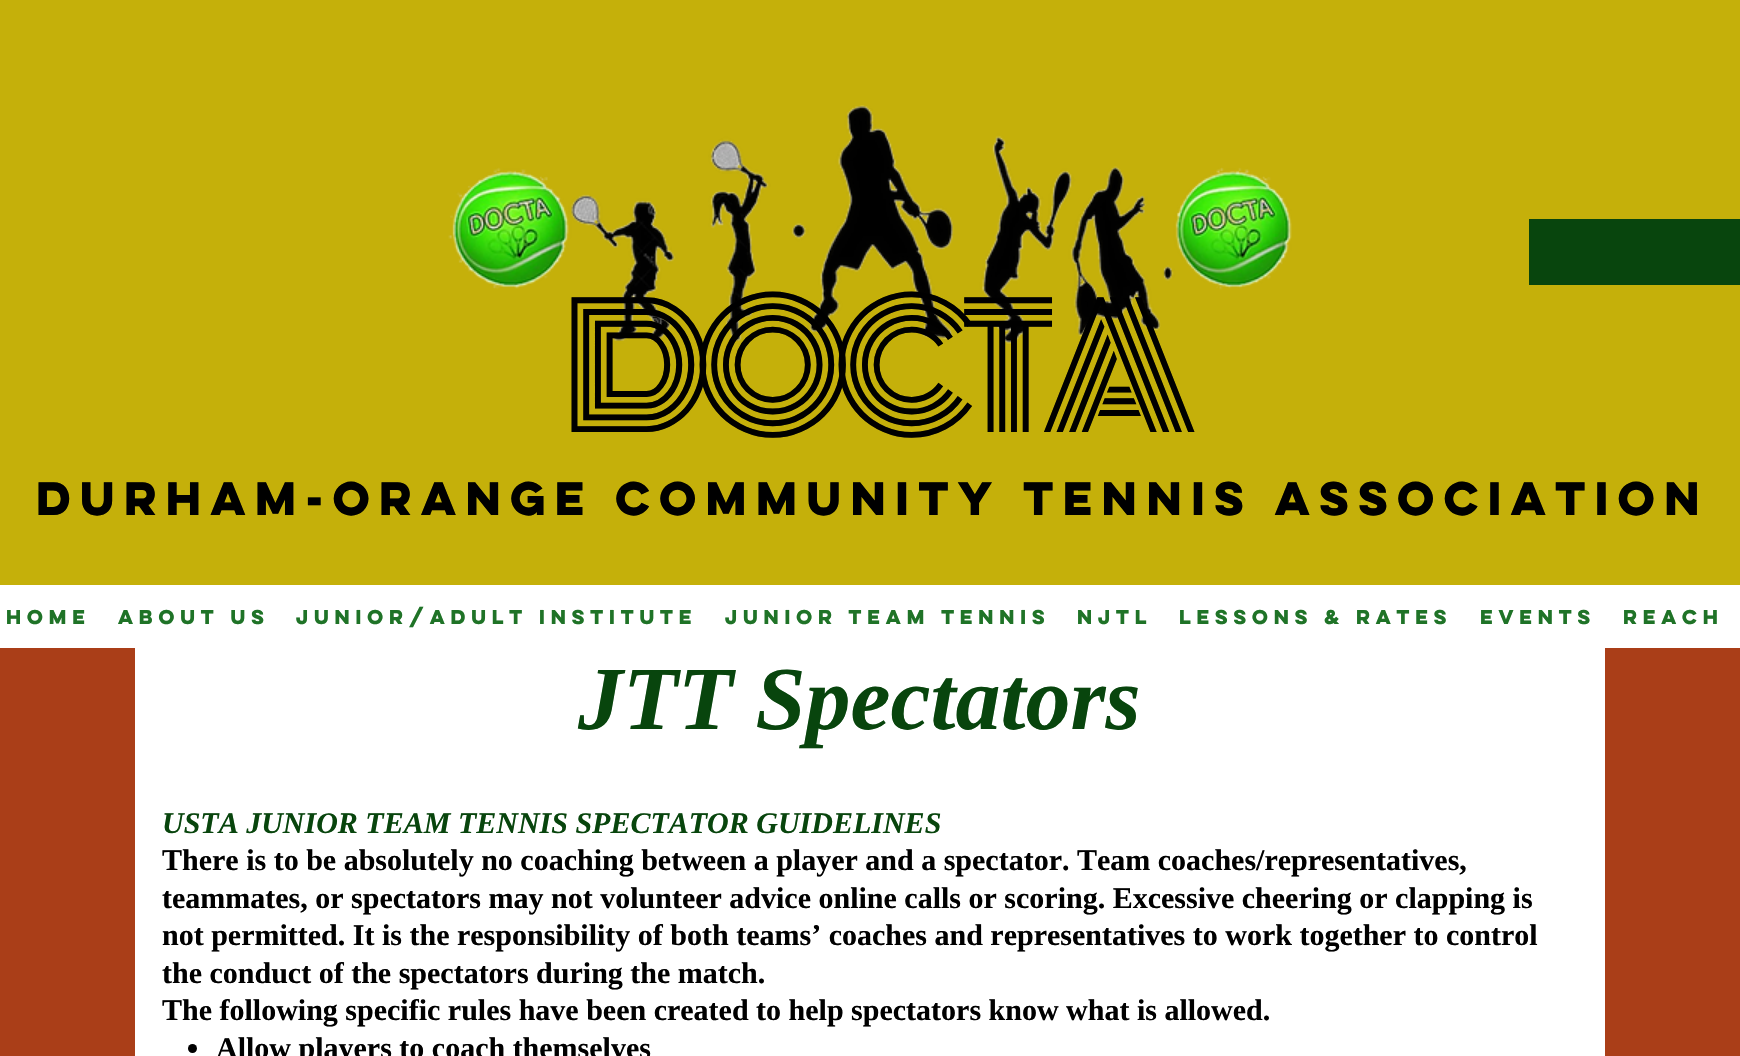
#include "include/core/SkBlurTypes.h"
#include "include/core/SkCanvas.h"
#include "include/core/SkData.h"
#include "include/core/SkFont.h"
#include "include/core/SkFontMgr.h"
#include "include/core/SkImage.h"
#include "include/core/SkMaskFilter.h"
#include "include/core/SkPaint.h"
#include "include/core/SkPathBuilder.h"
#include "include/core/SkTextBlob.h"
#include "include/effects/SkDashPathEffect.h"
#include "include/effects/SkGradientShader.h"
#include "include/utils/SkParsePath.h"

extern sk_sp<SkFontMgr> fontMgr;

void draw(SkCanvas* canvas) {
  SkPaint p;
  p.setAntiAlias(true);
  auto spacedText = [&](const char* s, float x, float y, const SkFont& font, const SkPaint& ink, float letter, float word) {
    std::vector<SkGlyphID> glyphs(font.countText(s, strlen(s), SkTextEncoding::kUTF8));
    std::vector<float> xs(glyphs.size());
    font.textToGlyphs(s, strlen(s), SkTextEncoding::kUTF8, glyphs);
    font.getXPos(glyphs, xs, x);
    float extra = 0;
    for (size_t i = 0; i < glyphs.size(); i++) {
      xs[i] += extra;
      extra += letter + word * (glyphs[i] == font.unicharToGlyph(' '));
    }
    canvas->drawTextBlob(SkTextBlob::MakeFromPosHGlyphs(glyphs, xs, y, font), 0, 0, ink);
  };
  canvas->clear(SkColorSetRGB(170, 62, 24));
  p.setColor(SkColorSetRGB(197, 176, 10));
  canvas->drawRect(SkRect::MakeLTRB(0, 0, 1740, 585), p);
  canvas->drawImageRect(SkImages::DeferredFromEncodedData(SkData::MakeFromFileName("images/1.png")), SkRect::MakeLTRB(448, 105, 1292, 344), SkSamplingOptions());
  p.setColor(SkColorSetRGB(8, 69, 13));
  canvas->drawRect(SkRect::MakeLTRB(1529, 219, 1740, 285), p);
  p.setColor(SK_ColorWHITE);
  canvas->drawRect(SkRect::MakeLTRB(0, 585, 1740, 648), p);
  canvas->drawRect(SkRect::MakeLTRB(135, 648, 1605, 1056), p);
  p.setColor(SK_ColorBLACK);
  canvas->drawCircle(192.5f, 1048.5f, 4.5f, p);
  SkFont font1(fontMgr->matchFamilyStyle("Monoton", SkFontStyle::Normal()), 166.5f);
  font1.setSubpixel(true);
  spacedText("DOCTA", 564, 432, font1, p, -16.5f, 0);
  SkFont font2(fontMgr->matchFamilyStyle("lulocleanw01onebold", SkFontStyle::Bold()), 42);
  font2.setSubpixel(true);
  canvas->drawString("Durham-Orange Community Tennis Association", 36, 515, font2, p);
  SkFont font3(fontMgr->matchFamilyStyle("lulocleanw01onebold", SkFontStyle::Bold()), 18);
  font3.setSubpixel(true);
  p.setColor(SkColorSetRGB(31, 115, 39));
  spacedText("Home", 6, 624, font3, p, 1.8f, 0);
  spacedText("About Us", 118, 624, font3, p, 1.8f, 0);
  spacedText("Junior/Adult Institute", 296, 624, font3, p, 1.8f, 0);
  spacedText("Junior Team Tennis", 725, 624, font3, p, 1.8f, 0);
  spacedText("NJTL", 1077, 624, font3, p, 1.8f, 0);
  spacedText("Lessons & Rates", 1179, 624, font3, p, 1.8f, 0);
  spacedText("Events", 1480, 624, font3, p, 1.8f, 0);
  spacedText("Reach", 1623, 624, font3, p, 1.8f, 0);
  SkFont font4(fontMgr->matchFamilyStyle("Liberation Serif", SkFontStyle::BoldItalic()), 90);
  font4.setSubpixel(true);
  p.setColor(SkColorSetRGB(8, 69, 13));
  canvas->drawString("JTT Spectators", 578, 729, font4, p);
  SkFont font5(fontMgr->matchFamilyStyle("Liberation Serif", SkFontStyle::BoldItalic()), 30);
  font5.setSubpixel(true);
  canvas->drawString("USTA JUNIOR TEAM TENNIS SPECTATOR GUIDELINES", 162, 833, font5, p);
  SkFont font6(fontMgr->matchFamilyStyle("Liberation Serif", SkFontStyle::Bold()), 30);
  font6.setSubpixel(true);
  p.setColor(SK_ColorBLACK);
  canvas->drawString("There is to be absolutely no coaching between a player and a spectator. Team coaches/representatives,", 162, 870, font6, p);
  canvas->drawString("teammates, or spectators may not volunteer advice online calls or scoring. Excessive cheering or clapping is", 162, 908, font6, p);
  canvas->drawString("not permitted. It is the responsibility of both teams’ coaches and representatives to work together to control", 162, 945, font6, p);
  canvas->drawString("the conduct of the spectators during the match.", 162, 983, font6, p);
  canvas->drawString("The following specific rules have been created to help spectators know what is allowed.", 162, 1020, font6, p);
  canvas->drawString("Allow players to coach themselves", 216, 1058, font6, p);
}
